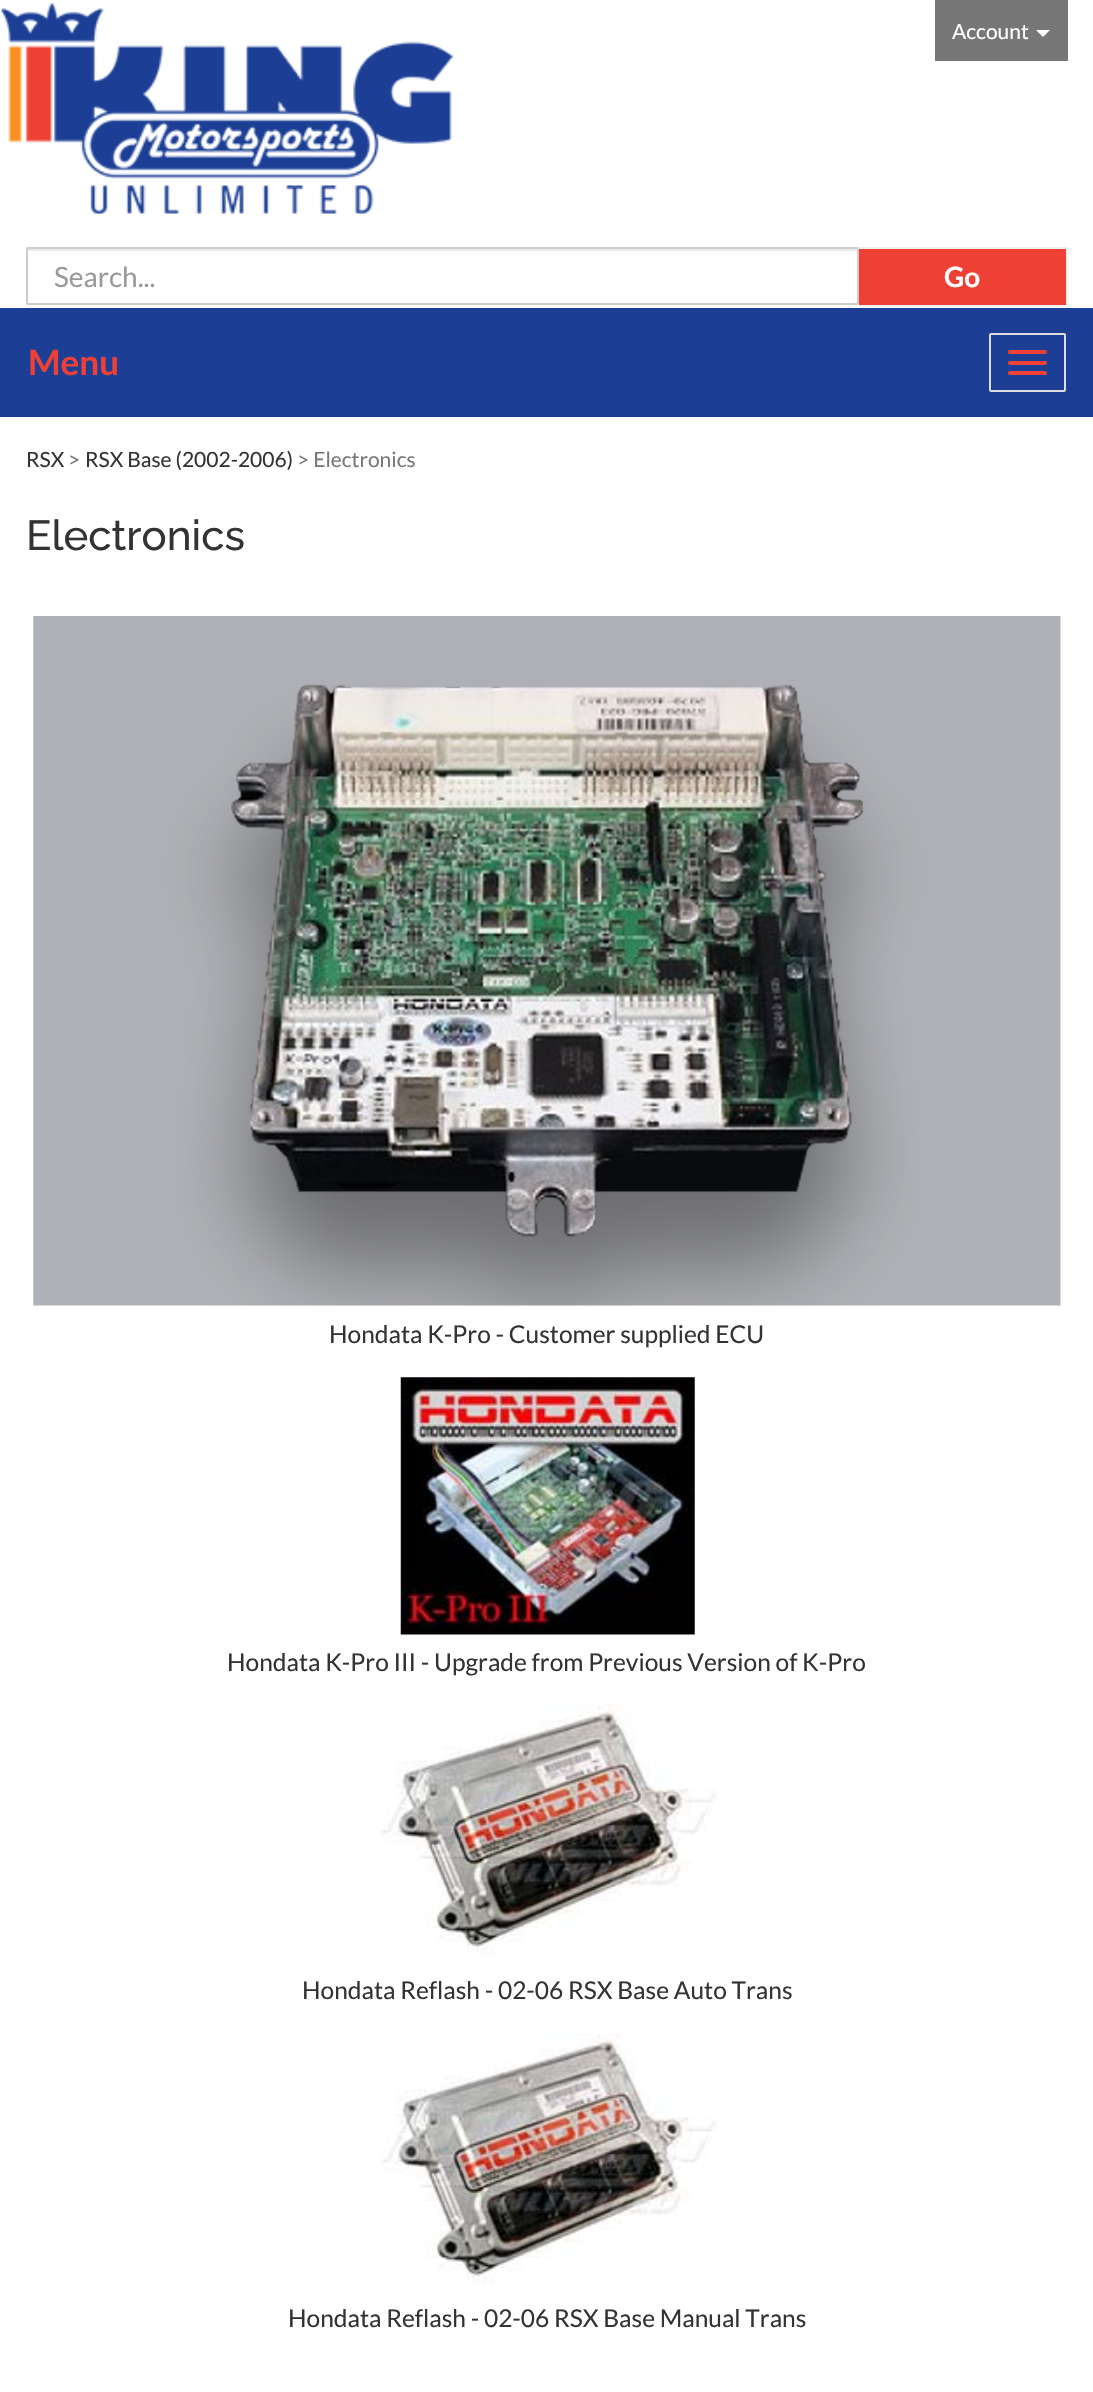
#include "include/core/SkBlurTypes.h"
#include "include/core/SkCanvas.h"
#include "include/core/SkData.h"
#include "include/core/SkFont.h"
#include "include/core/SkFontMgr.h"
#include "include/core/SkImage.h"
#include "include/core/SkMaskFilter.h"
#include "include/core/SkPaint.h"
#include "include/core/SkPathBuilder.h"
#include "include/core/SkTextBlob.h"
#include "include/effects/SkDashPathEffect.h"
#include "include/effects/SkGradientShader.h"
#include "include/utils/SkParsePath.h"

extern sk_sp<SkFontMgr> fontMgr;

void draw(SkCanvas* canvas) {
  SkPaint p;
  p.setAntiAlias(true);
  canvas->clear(SK_ColorWHITE);
  canvas->drawImageRect(SkImages::DeferredFromEncodedData(SkData::MakeFromFileName("images/1.png")), SkRect::MakeLTRB(1, 3, 454, 214), SkSamplingOptions());
  p.setColor(SkColorSetRGB(119, 119, 119));
  canvas->drawRect(SkRect::MakeLTRB(935, 0, 1068, 61), p);
  p.setColor(SK_ColorWHITE);
  canvas->drawPath(SkPathBuilder().moveTo(1036, 30).lineTo(1050, 30).lineTo(1043, 37).close().detach(), p);
  p.setColor(SkColorSetRGB(234, 234, 234));
  canvas->drawRect(SkRect::MakeLTRB(28, 249, 858, 251), p);
  p.setStyle(SkPaint::kStroke_Style);
  p.setStrokeWidth(2);
  p.setColor(SkColorSetRGB(204, 204, 204));
  canvas->drawRoundRect(SkRect::MakeLTRB(27, 248, 858, 304), 1, 1, p);
  p.setStyle(SkPaint::kFill_Style);
  p.setColor(SkColorSetRGB(239, 64, 53));
  canvas->drawRect(SkRect::MakeLTRB(859, 249, 1066, 305), p);
  p.setColor(SkColorSetRGB(239, 239, 239));
  canvas->drawRect(SkRect::MakeLTRB(859, 247, 1068, 249), p);
  canvas->drawRect(SkRect::MakeLTRB(1066, 247, 1068, 306), p);
  canvas->drawRect(SkRect::MakeLTRB(859, 305, 1068, 307), p);
  p.setColor(SkColorSetRGB(28, 63, 149));
  canvas->drawRect(SkRect::MakeLTRB(0, 308, 1093, 417), p);
  p.setStyle(SkPaint::kStroke_Style);
  p.setColor(SkColorSetRGB(221, 221, 221));
  canvas->drawRoundRect(SkRect::MakeLTRB(990, 334, 1065, 391), 1, 1, p);
  p.setStyle(SkPaint::kFill_Style);
  p.setColor(SkColorSetRGB(239, 64, 53));
  canvas->drawRoundRect(SkRect::MakeLTRB(1008, 350, 1047, 354), 2, 2, p);
  canvas->drawRoundRect(SkRect::MakeLTRB(1008, 361, 1047, 365), 2, 2, p);
  canvas->drawRoundRect(SkRect::MakeLTRB(1008, 371, 1047, 375), 2, 2, p);
  canvas->drawImageRect(SkImages::DeferredFromEncodedData(SkData::MakeFromFileName("images/2.png")), SkRect::MakeLTRB(33, 616, 1061, 1306), SkSamplingOptions());
  canvas->drawImageRect(SkImages::DeferredFromEncodedData(SkData::MakeFromFileName("images/3.png")), SkRect::MakeLTRB(400, 1377, 695, 1635), SkSamplingOptions());
  canvas->drawImageRect(SkImages::DeferredFromEncodedData(SkData::MakeFromFileName("images/4.png")), SkRect::MakeLTRB(380, 1704, 717, 1956), SkSamplingOptions());
  canvas->drawImageRect(SkImages::DeferredFromEncodedData(SkData::MakeFromFileName("images/4.png")), SkRect::MakeLTRB(380, 2033, 717, 2285), SkSamplingOptions());
  SkFont font1(fontMgr->matchFamilyStyle("Lato", SkFontStyle::Normal()), 21);
  font1.setSubpixel(true);
  p.setColor(SK_ColorWHITE);
  canvas->drawString("Account", 952, 39, font1, p);
  SkFont font2(fontMgr->matchFamilyStyle("Lato", SkFontStyle::Normal()), 28);
  font2.setSubpixel(true);
  p.setColor(SkColorSetRGB(153, 153, 153));
  canvas->drawString("Search...", 54, 287, font2, p);
  SkFont font3(fontMgr->matchFamilyStyle("Lato", SkFontStyle::Bold()), 28);
  font3.setSubpixel(true);
  p.setColor(SK_ColorWHITE);
  canvas->drawString("Go", 944, 287, font3, p);
  SkFont font4(fontMgr->matchFamilyStyle("Lato", SkFontStyle::Bold()), 35);
  font4.setSubpixel(true);
  p.setColor(SkColorSetRGB(239, 64, 53));
  canvas->drawString("Menu", 28, 375, font4, p);
  p.setColor(SkColorSetRGB(51, 51, 51));
  canvas->drawString("RSX", 26, 467, font1, p);
  p.setColor(SkColorSetRGB(119, 119, 119));
  canvas->drawString(">", 68, 467, font1, p);
  p.setColor(SkColorSetRGB(51, 51, 51));
  canvas->drawString("RSX Base (2002-2006)", 85, 467, font1, p);
  p.setColor(SkColorSetRGB(119, 119, 119));
  canvas->drawString("> Electronics", 297, 467, font1, p);
  SkFont font5(fontMgr->matchFamilyStyle("Raleway", SkFontStyle(500, SkFontStyle::kNormal_Width, SkFontStyle::kUpright_Slant)), 42);
  font5.setSubpixel(true);
  p.setColor(SkColorSetRGB(51, 51, 51));
  canvas->drawString("Electronics", 26, 550, font5, p);
  SkFont font6(fontMgr->matchFamilyStyle("Lato", SkFontStyle::Normal()), 24.5f);
  font6.setSubpixel(true);
  canvas->drawString("Hondata K-Pro - Customer supplied ECU", 329, 1343, font6, p);
  canvas->drawString("Hondata K-Pro III - Upgrade from Previous Version of K-Pro", 227, 1671, font6, p);
  canvas->drawString("Hondata Reflash - 02-06 RSX Base Auto Trans", 302, 1999, font6, p);
  canvas->drawString("Hondata Reflash - 02-06 RSX Base Manual Trans", 288, 2327, font6, p);
}
